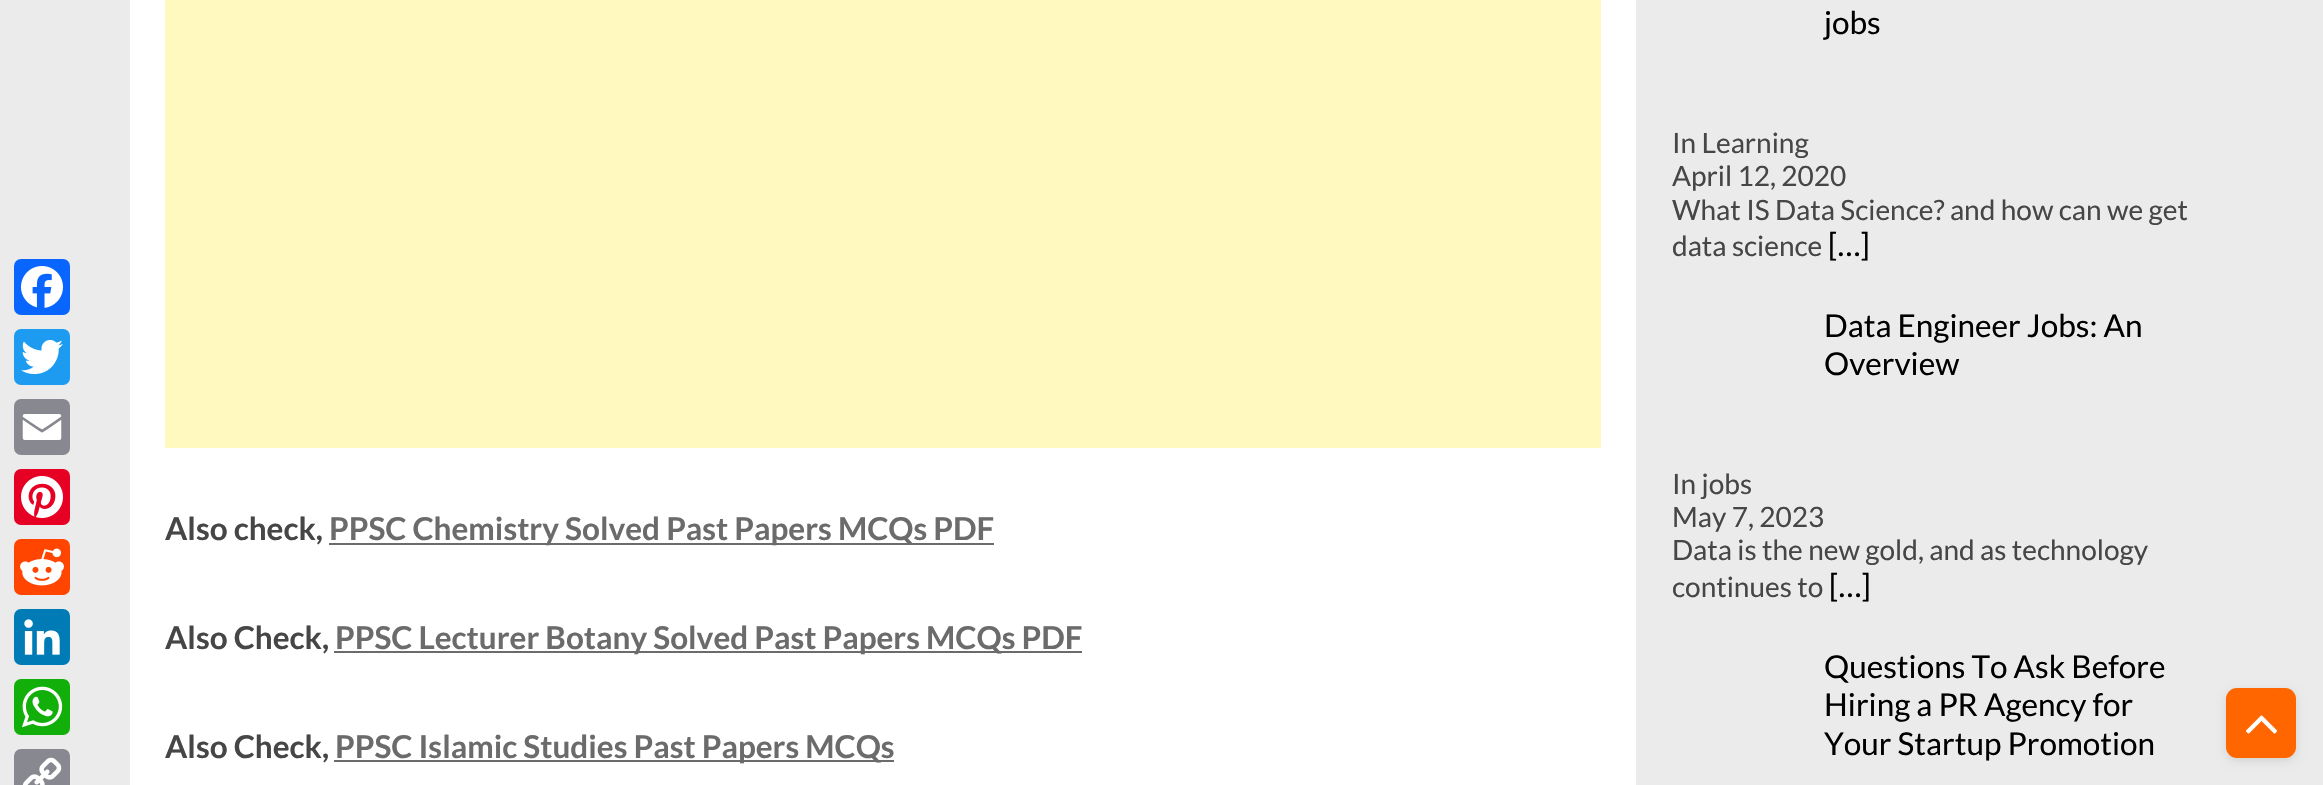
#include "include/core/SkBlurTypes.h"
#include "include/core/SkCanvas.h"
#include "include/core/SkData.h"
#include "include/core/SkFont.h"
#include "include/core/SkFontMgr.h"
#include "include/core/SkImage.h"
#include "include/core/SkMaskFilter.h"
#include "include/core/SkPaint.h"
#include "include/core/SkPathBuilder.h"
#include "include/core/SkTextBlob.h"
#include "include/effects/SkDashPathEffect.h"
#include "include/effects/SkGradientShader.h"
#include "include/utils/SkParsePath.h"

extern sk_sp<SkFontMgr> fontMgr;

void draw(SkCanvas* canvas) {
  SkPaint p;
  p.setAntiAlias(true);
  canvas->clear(SkColorSetRGB(235, 235, 235));
  p.setColor(SkColorSetRGB(8, 102, 255));
  canvas->drawRoundRect(SkRect::MakeLTRB(14, 259, 70, 315), 7, 7, p);
  canvas->drawImageRect(SkImages::DeferredFromEncodedData(SkData::MakeFromFileName("images/1.png")), SkRect::MakeLTRB(21, 266, 63, 308), SkSamplingOptions());
  p.setColor(SkColorSetRGB(29, 155, 240));
  canvas->drawRoundRect(SkRect::MakeLTRB(14, 329, 70, 385), 7, 7, p);
  canvas->drawImageRect(SkImages::DeferredFromEncodedData(SkData::MakeFromFileName("images/2.png")), SkRect::MakeLTRB(21, 339, 63, 375), SkSamplingOptions());
  p.setColor(SkColorSetRGB(136, 137, 144));
  canvas->drawRoundRect(SkRect::MakeLTRB(14, 399, 70, 455), 7, 7, p);
  canvas->drawImageRect(SkImages::DeferredFromEncodedData(SkData::MakeFromFileName("images/3.png")), SkRect::MakeLTRB(22, 414, 62, 440), SkSamplingOptions());
  p.setColor(SkColorSetRGB(230, 0, 35));
  canvas->drawRoundRect(SkRect::MakeLTRB(14, 469, 70, 525), 7, 7, p);
  canvas->drawImageRect(SkImages::DeferredFromEncodedData(SkData::MakeFromFileName("images/4.png")), SkRect::MakeLTRB(21, 476, 63, 518), SkSamplingOptions());
  p.setColor(SkColorSetRGB(255, 69, 0));
  canvas->drawRoundRect(SkRect::MakeLTRB(14, 539, 70, 595), 7, 7, p);
  canvas->drawImageRect(SkImages::DeferredFromEncodedData(SkData::MakeFromFileName("images/5.png")), SkRect::MakeLTRB(20, 548, 64, 586), SkSamplingOptions());
  p.setColor(SkColorSetRGB(0, 123, 181));
  canvas->drawRoundRect(SkRect::MakeLTRB(14, 609, 70, 665), 7, 7, p);
  canvas->drawImageRect(SkImages::DeferredFromEncodedData(SkData::MakeFromFileName("images/6.png")), SkRect::MakeLTRB(24, 619, 60, 655), SkSamplingOptions());
  p.setColor(SkColorSetRGB(18, 175, 10));
  canvas->drawRoundRect(SkRect::MakeLTRB(14, 679, 70, 735), 7, 7, p);
  canvas->drawImageRect(SkImages::DeferredFromEncodedData(SkData::MakeFromFileName("images/7.png")), SkRect::MakeLTRB(22, 686, 63, 728), SkSamplingOptions());
  p.setColor(SkColorSetRGB(136, 137, 144));
  canvas->drawRoundRect(SkRect::MakeLTRB(14, 749, 70, 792), 7, 7, p);
  canvas->drawImageRect(SkImages::DeferredFromEncodedData(SkData::MakeFromFileName("images/8.png")), SkRect::MakeLTRB(22, 757, 62, 785), SkSamplingOptions());
  p.setColor(SK_ColorWHITE);
  canvas->drawRect(SkRect::MakeLTRB(130, 0, 1636, 785), p);
  p.setColor(SkColorSetRGB(255, 249, 192));
  canvas->drawRect(SkRect::MakeLTRB(165, 0, 1601, 448), p);
  p.setColor(SkColorSetRGB(107, 107, 107));
  canvas->drawRect(SkRect::MakeLTRB(329, 543, 994, 545), p);
  canvas->drawRect(SkRect::MakeLTRB(334, 651, 1082, 653), p);
  canvas->drawRect(SkRect::MakeLTRB(334, 760, 894, 762), p);
  p.setColor(SkColorSetARGB(26, 0, 0, 0));
  p.setMaskFilter(SkMaskFilter::MakeBlur(kNormal_SkBlurStyle, 5));
  canvas->drawRoundRect(SkRect::MakeLTRB(2226, 691, 2296, 761), 11, 11, p);
  p.setMaskFilter(nullptr);
  p.setColor(SkColorSetRGB(255, 102, 0));
  canvas->drawRoundRect(SkRect::MakeLTRB(2226, 688, 2296, 758), 11, 11, p);
  canvas->drawImageRect(SkImages::DeferredFromEncodedData(SkData::MakeFromFileName("images/9.png")), SkRect::MakeLTRB(2246, 715, 2277, 734), SkSamplingOptions());
  SkFont font1(fontMgr->matchFamilyStyle("Lato", SkFontStyle::Bold()), 31.5f);
  font1.setSubpixel(true);
  p.setColor(SkColorSetRGB(70, 70, 70));
  canvas->drawString("Also check,", 165, 540, font1, p);
  p.setColor(SkColorSetRGB(107, 107, 107));
  canvas->drawString("PPSC Chemistry Solved Past Papers MCQs PDF", 329, 540, font1, p);
  p.setColor(SkColorSetRGB(70, 70, 70));
  canvas->drawString("Also Check,", 165, 649, font1, p);
  p.setColor(SkColorSetRGB(107, 107, 107));
  canvas->drawString("PPSC Lecturer Botany Solved Past Papers MCQs PDF", 335, 649, font1, p);
  p.setColor(SkColorSetRGB(70, 70, 70));
  canvas->drawString("Also Check,", 165, 758, font1, p);
  p.setColor(SkColorSetRGB(107, 107, 107));
  canvas->drawString("PPSC Islamic Studies Past Papers MCQs", 335, 758, font1, p);
  SkFont font2(fontMgr->matchFamilyStyle("Lato", SkFontStyle::Normal()), 31.5f);
  font2.setSubpixel(true);
  p.setColor(SK_ColorBLACK);
  canvas->drawString("jobs", 1824, 34, font2, p);
  SkFont font3(fontMgr->matchFamilyStyle("Lato", SkFontStyle::Normal()), 28);
  font3.setSubpixel(true);
  p.setColor(SkColorSetRGB(70, 70, 70));
  canvas->drawString("In Learning", 1672, 153, font3, p);
  canvas->drawString("April 12, 2020", 1672, 186, font3, p);
  canvas->drawString("What IS Data Science? and how can we get", 1672, 220, font3, p);
  canvas->drawString("data science", 1672, 256, font3, p);
  p.setColor(SK_ColorBLACK);
  canvas->drawString("[…]", 1828, 256, font2, p);
  canvas->drawString("Data Engineer Jobs: An", 1824, 337, font2, p);
  canvas->drawString("Overview", 1824, 375, font2, p);
  p.setColor(SkColorSetRGB(70, 70, 70));
  canvas->drawString("In jobs", 1672, 494, font3, p);
  canvas->drawString("May 7, 2023", 1672, 527, font3, p);
  canvas->drawString("Data is the new gold, and as technology", 1672, 560, font3, p);
  canvas->drawString("continues to", 1672, 597, font3, p);
  p.setColor(SK_ColorBLACK);
  canvas->drawString("[…]", 1829, 597, font2, p);
  canvas->drawString("Questions To Ask Before", 1824, 678, font2, p);
  canvas->drawString("Hiring a PR Agency for", 1824, 716, font2, p);
  canvas->drawString("Your Startup Promotion", 1824, 755, font2, p);
}
